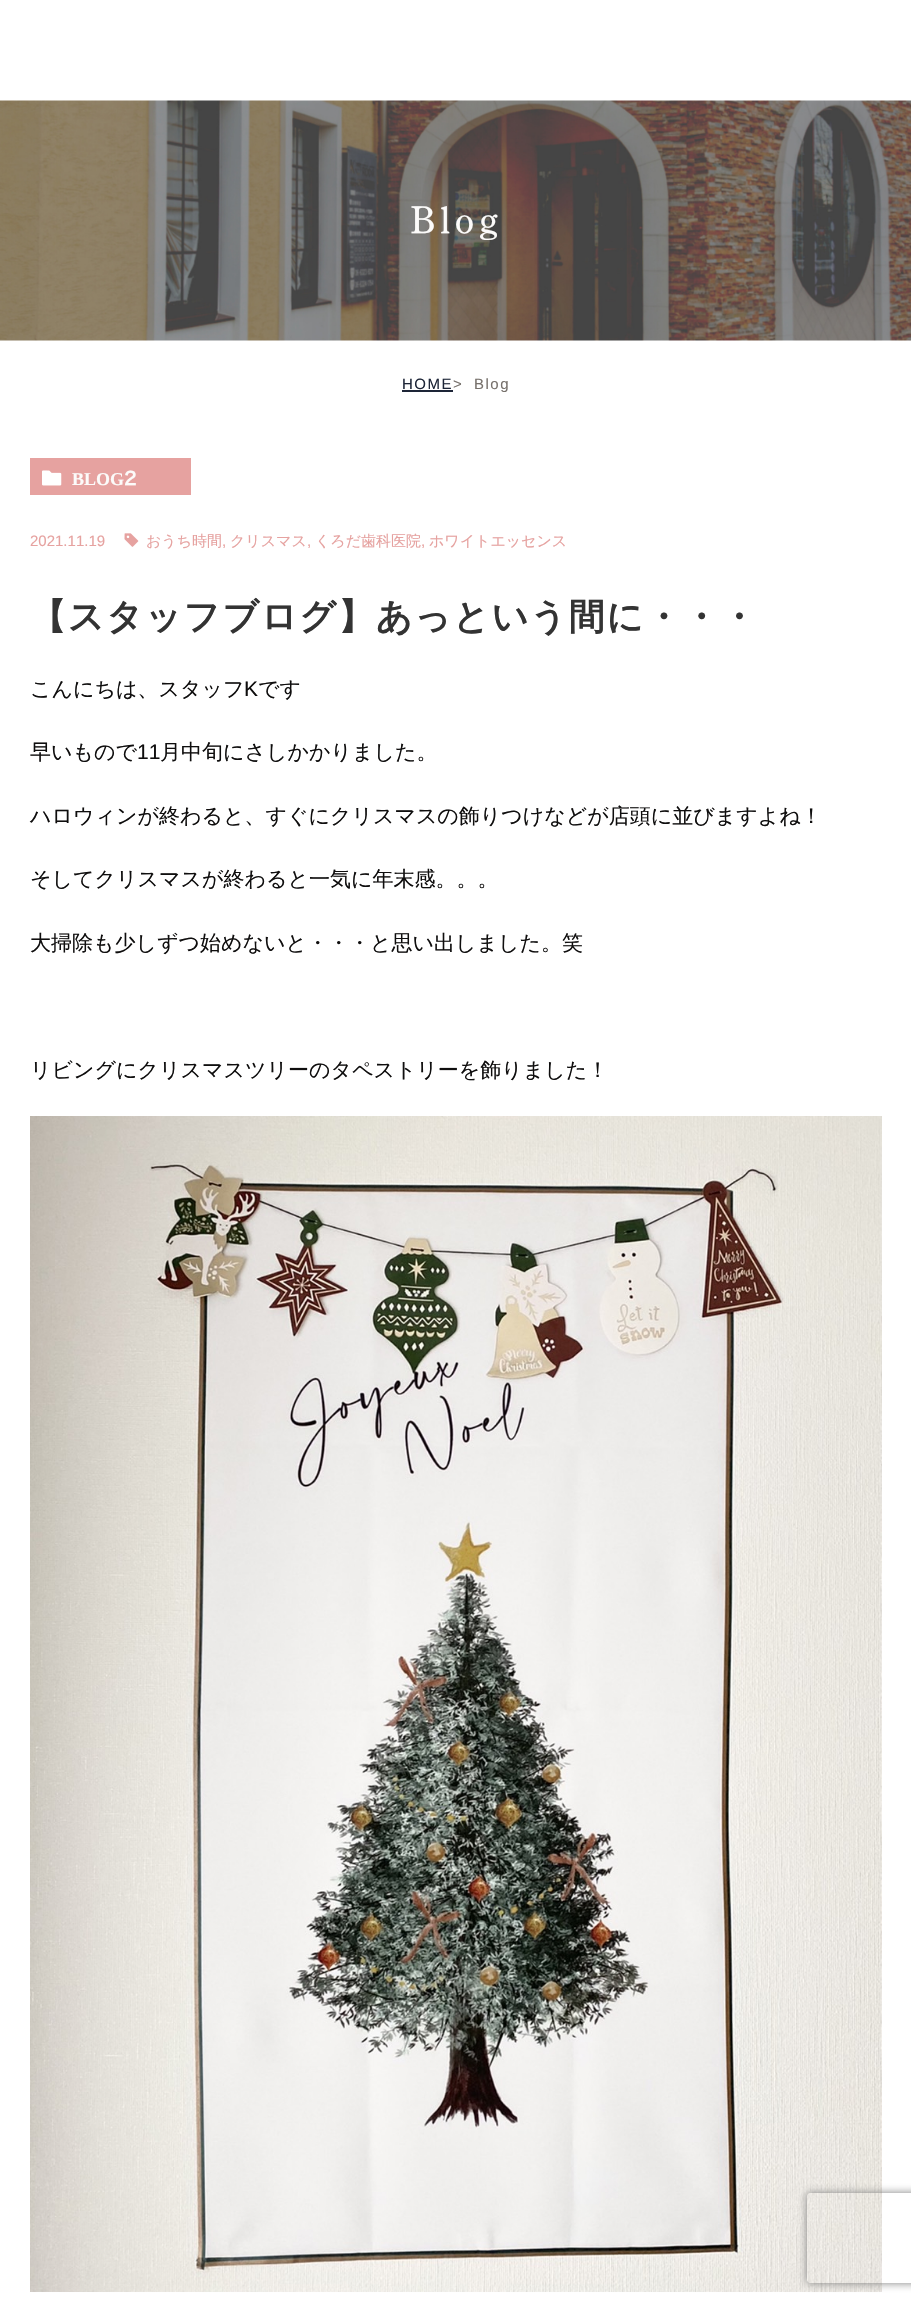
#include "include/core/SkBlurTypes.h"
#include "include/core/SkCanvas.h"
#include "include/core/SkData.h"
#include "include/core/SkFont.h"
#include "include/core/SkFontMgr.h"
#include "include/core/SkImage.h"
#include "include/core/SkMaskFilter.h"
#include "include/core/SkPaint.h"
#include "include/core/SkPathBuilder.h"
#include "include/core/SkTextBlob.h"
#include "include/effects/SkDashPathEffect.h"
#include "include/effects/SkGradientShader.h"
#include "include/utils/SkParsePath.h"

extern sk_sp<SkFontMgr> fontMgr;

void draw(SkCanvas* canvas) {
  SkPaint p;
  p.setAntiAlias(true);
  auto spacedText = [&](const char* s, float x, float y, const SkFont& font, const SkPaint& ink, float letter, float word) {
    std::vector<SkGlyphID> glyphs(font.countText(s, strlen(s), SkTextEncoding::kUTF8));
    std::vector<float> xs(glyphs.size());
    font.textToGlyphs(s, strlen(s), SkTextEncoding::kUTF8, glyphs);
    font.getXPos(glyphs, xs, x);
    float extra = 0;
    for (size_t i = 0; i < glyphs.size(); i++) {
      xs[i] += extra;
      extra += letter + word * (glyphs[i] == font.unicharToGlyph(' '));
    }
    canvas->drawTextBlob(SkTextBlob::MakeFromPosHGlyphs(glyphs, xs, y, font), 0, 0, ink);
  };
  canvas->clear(SK_ColorWHITE);
  canvas->drawImageRect(SkImages::DeferredFromEncodedData(SkData::MakeFromFileName("images/1.png")), SkRect::MakeLTRB(0, 100, 911, 341), SkSamplingOptions());
  p.setColor(SkColorSetRGB(29, 37, 55));
  canvas->drawRect(SkRect::MakeLTRB(402, 390, 453, 392), p);
  p.setColor(SkColorSetRGB(230, 162, 160));
  canvas->drawRect(SkRect::MakeLTRB(30, 458, 191, 495), p);
  canvas->drawImageRect(SkImages::DeferredFromEncodedData(SkData::MakeFromFileName("images/2.png")), SkRect::MakeLTRB(42, 470, 62, 486), SkSamplingOptions());
  canvas->drawImageRect(SkImages::DeferredFromEncodedData(SkData::MakeFromFileName("images/3.png")), SkRect::MakeLTRB(124, 533, 139, 547), SkSamplingOptions());
  canvas->drawImageRect(SkImages::DeferredFromEncodedData(SkData::MakeFromFileName("images/4.png")), SkRect::MakeLTRB(30, 1116, 882, 2292), SkSamplingOptions());
  canvas->save();
  canvas->clipPath(SkPathBuilder(SkPathFillType::kEvenOdd).moveTo(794, 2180).lineTo(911, 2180).lineTo(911, 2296).lineTo(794, 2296).close().moveTo(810, 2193).lineTo(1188, 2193).cubicTo(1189.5f, 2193, 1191, 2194.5f, 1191, 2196).lineTo(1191, 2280).cubicTo(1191, 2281.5f, 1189.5f, 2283, 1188, 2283).lineTo(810, 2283).cubicTo(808.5f, 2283, 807, 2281.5f, 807, 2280).lineTo(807, 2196).cubicTo(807, 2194.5f, 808.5f, 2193, 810, 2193).close().detach(), true);
  p.setColor(SkColorSetRGB(128, 128, 128));
  p.setMaskFilter(SkMaskFilter::MakeBlur(kNormal_SkBlurStyle, 4));
  canvas->drawRoundRect(SkRect::MakeLTRB(807, 2193, 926, 2283), 3, 3, p);
  p.setMaskFilter(nullptr);
  canvas->restore();
  SkFont font1(fontMgr->matchFamilyStyle("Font", SkFontStyle(500, SkFontStyle::kNormal_Width, SkFontStyle::kUpright_Slant)), 39);
  font1.setSubpixel(true);
  p.setColor(SkColorSetRGB(252, 251, 250));
  spacedText("Blog", 410, 235, font1, p, 4, 0);
  SkFont font2(fontMgr->matchFamilyStyle("Liberation Sans", SkFontStyle::Normal()), 15);
  font2.setSubpixel(true);
  p.setColor(SkColorSetRGB(29, 37, 55));
  spacedText("HOME", 402, 389, font2, p, 1.5f, 0);
  p.setColor(SkColorSetRGB(119, 113, 108));
  spacedText(">", 453, 389, font2, p, 1.5f, 0);
  spacedText("Blog", 474, 389, font2, p, 1.5f, 0);
  SkFont font3(fontMgr->matchFamilyStyle("Liberation Serif", SkFontStyle::Bold()), 18);
  font3.setSubpixel(true);
  p.setColor(SkColorSetRGB(252, 251, 250));
  canvas->drawString("BLOG", 72, 485, font3, p);
  SkFont font4(fontMgr->matchFamilyStyle("Font", SkFontStyle(600, SkFontStyle::kNormal_Width, SkFontStyle::kUpright_Slant)), 18);
  font4.setSubpixel(true);
  canvas->drawString("2", 124, 485, font4, p);
  p.setColor(SkColorSetRGB(230, 162, 160));
  canvas->drawString("2021.11.19", 30, 546, font2, p);
  SkFont font5(fontMgr->matchFamilyStyle("WenQuanYi Zen Hei", SkFontStyle(500, SkFontStyle::kNormal_Width, SkFontStyle::kUpright_Slant)), 15);
  font5.setSubpixel(true);
  canvas->drawString("おうち時間", 146, 546, font5, p);
  canvas->drawString(",", 222, 546, font2, p);
  canvas->drawString("クリスマス", 230, 546, font5, p);
  canvas->drawString(",", 307, 546, font2, p);
  canvas->drawString("くろだ歯科医院", 315, 546, font5, p);
  canvas->drawString(",", 421, 546, font2, p);
  canvas->drawString("ホワイトエッセンス", 429, 546, font5, p);
  SkFont font6(fontMgr->matchFamilyStyle("WenQuanYi Zen Hei", SkFontStyle::Bold()), 36);
  font6.setSubpixel(true);
  p.setColor(SkColorSetRGB(51, 51, 51));
  spacedText("【スタッフブログ】あっという間に・・・", 30, 629, font6, p, 1.75f, 0);
  SkFont font7(fontMgr->matchFamilyStyle("WenQuanYi Zen Hei", SkFontStyle(500, SkFontStyle::kNormal_Width, SkFontStyle::kUpright_Slant)), 21);
  font7.setSubpixel(true);
  p.setColor(SkColorSetRGB(15, 14, 14));
  canvas->drawString("こんにちは、スタッフ", 30, 696, font7, p);
  SkFont font8(fontMgr->matchFamilyStyle("Liberation Sans", SkFontStyle::Normal()), 21);
  font8.setSubpixel(true);
  canvas->drawString("K", 244, 696, font8, p);
  canvas->drawString("です", 258, 696, font7, p);
  canvas->drawString("早いもので", 30, 759, font7, p);
  canvas->drawString("11", 137, 759, font8, p);
  canvas->drawString("月中旬にさしかかりました。", 160, 759, font7, p);
  canvas->drawString("ハロウィンが終わると、すぐにクリスマスの飾りつけなどが店頭に並びますよね！", 30, 823, font7, p);
  canvas->drawString("そしてクリスマスが終わると一気に年末感。。。", 30, 886, font7, p);
  canvas->drawString("大掃除も少しずつ始めないと・・・と思い出しました。笑", 30, 950, font7, p);
  canvas->drawString("リビングにクリスマスツリーのタペストリーを飾りました！", 30, 1077, font7, p);
}
